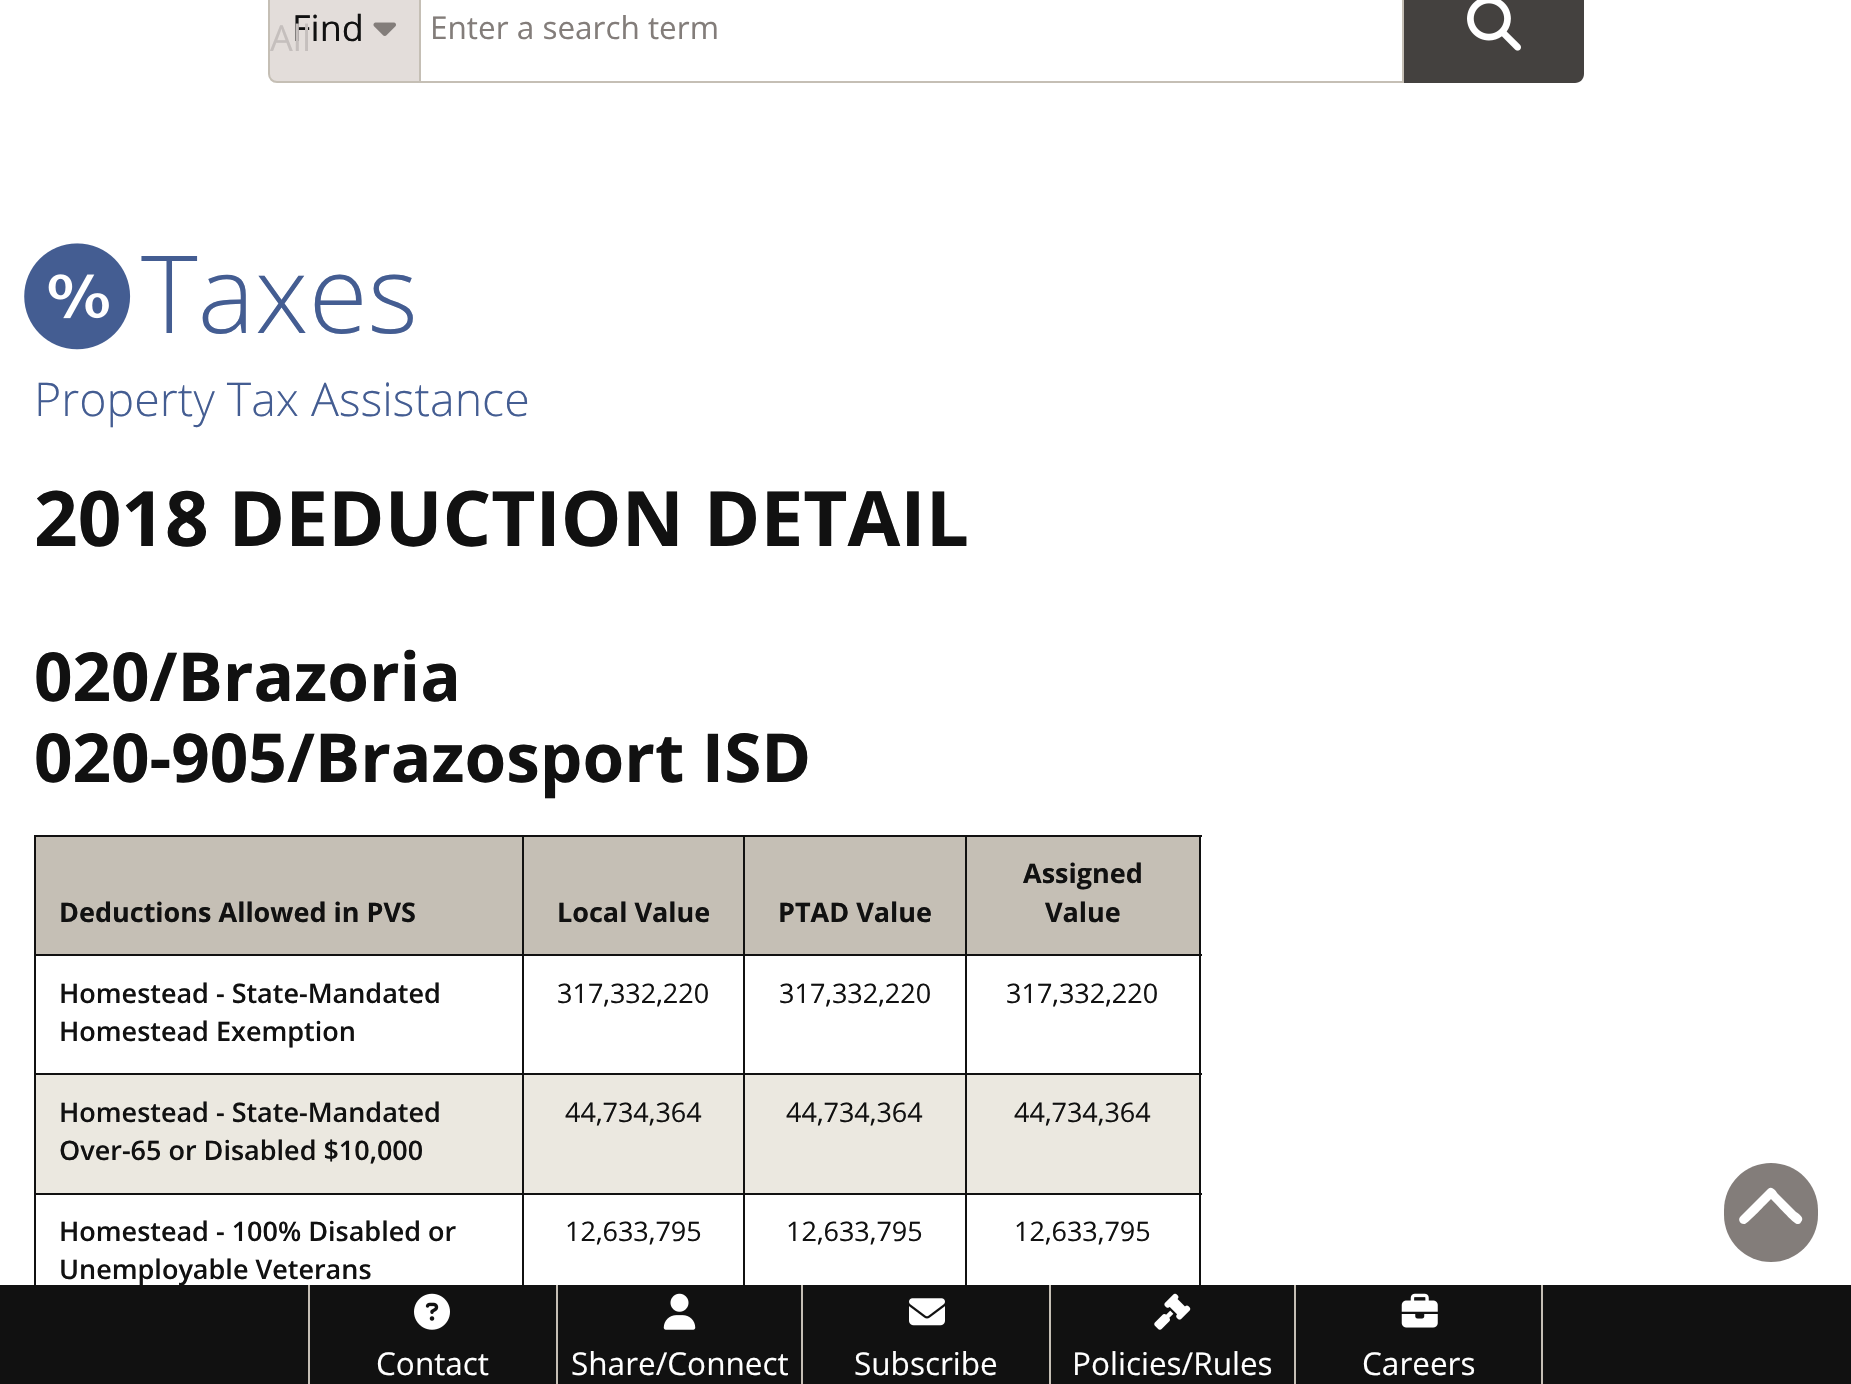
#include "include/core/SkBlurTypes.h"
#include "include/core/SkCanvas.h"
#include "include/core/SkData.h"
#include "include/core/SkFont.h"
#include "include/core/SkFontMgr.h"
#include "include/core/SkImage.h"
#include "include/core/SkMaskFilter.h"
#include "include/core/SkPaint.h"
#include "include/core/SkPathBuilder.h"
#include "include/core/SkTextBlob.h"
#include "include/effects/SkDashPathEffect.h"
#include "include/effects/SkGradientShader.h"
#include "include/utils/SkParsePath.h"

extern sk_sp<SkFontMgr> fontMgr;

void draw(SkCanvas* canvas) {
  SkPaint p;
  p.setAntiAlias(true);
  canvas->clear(SK_ColorWHITE);
  p.setColor(SkColorSetRGB(227, 221, 218));
  canvas->drawPath(SkPathBuilder().moveTo(277, -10).lineTo(420, -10).lineTo(420, 82).lineTo(277, 82).cubicTo(272.5f, 82, 269, 78.5f, 269, 74).lineTo(269, -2).cubicTo(269, -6.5f, 272.5f, -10, 277, -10).close().detach(), p);
  p.setStyle(SkPaint::kStroke_Style);
  p.setStrokeWidth(2);
  p.setColor(SkColorSetRGB(197, 191, 181));
  canvas->drawPath(SkPathBuilder().moveTo(277, -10).lineTo(420, -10).lineTo(420, 82).lineTo(277, 82).cubicTo(272.5f, 82, 269, 78.5f, 269, 74).lineTo(269, -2).cubicTo(269, -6.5f, 272.5f, -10, 277, -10).close().detach(), p);
  canvas->drawImageRect(SkImages::DeferredFromEncodedData(SkData::MakeFromFileName("images/1.png")), SkRect::MakeLTRB(373, 22, 396, 36), SkSamplingOptions());
  p.setStyle(SkPaint::kFill_Style);
  canvas->drawRect(SkRect::MakeLTRB(1402, 0, 1404, 83), p);
  canvas->drawRect(SkRect::MakeLTRB(421, 81, 1404, 83), p);
  p.setColor(SkColorSetRGB(68, 65, 63));
  canvas->drawPath(SkPathBuilder().moveTo(1404, -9).lineTo(1575, -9).cubicTo(1580, -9, 1584, -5, 1584, 0).lineTo(1584, 74).cubicTo(1584, 79, 1580, 83, 1575, 83).lineTo(1404, 83).close().detach(), p);
  canvas->drawImageRect(SkImages::DeferredFromEncodedData(SkData::MakeFromFileName("images/2.png")), SkRect::MakeLTRB(1467, 0, 1521, 51), SkSamplingOptions());
  canvas->drawImageRect(SkImages::DeferredFromEncodedData(SkData::MakeFromFileName("images/3.png")), SkRect::MakeLTRB(24, 243, 131, 350), SkSamplingOptions());
  p.setColor(SkColorSetRGB(197, 191, 181));
  canvas->drawRect(SkRect::MakeLTRB(36, 837, 1199, 954), p);
  p.setColor(SkColorSetRGB(17, 17, 17));
  canvas->drawRect(SkRect::MakeLTRB(965, 835, 1202, 837), p);
  canvas->drawRect(SkRect::MakeLTRB(965, 954, 1202, 956), p);
  p.setColor(SkColorSetRGB(235, 232, 224));
  canvas->drawRect(SkRect::MakeLTRB(36, 1075, 1199, 1193), p);
  p.setColor(SkColorSetRGB(17, 17, 17));
  canvas->drawRect(SkRect::MakeLTRB(965, 1073, 1202, 1075), p);
  canvas->drawRect(SkRect::MakeLTRB(965, 1193, 1202, 1195), p);
  canvas->drawRect(SkRect::MakeLTRB(965, 1193, 967, 1285), p);
  canvas->drawRect(SkRect::MakeLTRB(743, 1193, 968, 1195), p);
  canvas->drawRect(SkRect::MakeLTRB(965, 1073, 967, 1195), p);
  canvas->drawRect(SkRect::MakeLTRB(743, 1073, 968, 1075), p);
  canvas->drawRect(SkRect::MakeLTRB(965, 954, 967, 1076), p);
  canvas->drawRect(SkRect::MakeLTRB(743, 954, 968, 956), p);
  canvas->drawRect(SkRect::MakeLTRB(965, 835, 967, 956), p);
  canvas->drawRect(SkRect::MakeLTRB(743, 835, 968, 837), p);
  canvas->drawRect(SkRect::MakeLTRB(743, 1193, 745, 1285), p);
  canvas->drawRect(SkRect::MakeLTRB(522, 1193, 745, 1195), p);
  canvas->drawRect(SkRect::MakeLTRB(743, 1073, 745, 1195), p);
  canvas->drawRect(SkRect::MakeLTRB(522, 1073, 745, 1075), p);
  canvas->drawRect(SkRect::MakeLTRB(743, 954, 745, 1076), p);
  canvas->drawRect(SkRect::MakeLTRB(522, 954, 745, 956), p);
  canvas->drawRect(SkRect::MakeLTRB(743, 835, 745, 956), p);
  canvas->drawRect(SkRect::MakeLTRB(522, 835, 745, 837), p);
  canvas->drawRect(SkRect::MakeLTRB(522, 1193, 524, 1285), p);
  canvas->drawRect(SkRect::MakeLTRB(34, 1193, 524, 1195), p);
  canvas->drawRect(SkRect::MakeLTRB(522, 1073, 524, 1195), p);
  canvas->drawRect(SkRect::MakeLTRB(34, 1073, 524, 1075), p);
  canvas->drawRect(SkRect::MakeLTRB(522, 954, 524, 1076), p);
  canvas->drawRect(SkRect::MakeLTRB(34, 954, 524, 956), p);
  canvas->drawRect(SkRect::MakeLTRB(522, 835, 524, 956), p);
  canvas->drawRect(SkRect::MakeLTRB(34, 835, 524, 837), p);
  canvas->drawRect(SkRect::MakeLTRB(34, 1193, 36, 1285), p);
  canvas->drawRect(SkRect::MakeLTRB(34, 1073, 36, 1195), p);
  canvas->drawRect(SkRect::MakeLTRB(34, 954, 36, 1076), p);
  canvas->drawRect(SkRect::MakeLTRB(34, 835, 36, 956), p);
  canvas->drawRect(SkRect::MakeLTRB(1199, 1193, 1201, 1285), p);
  canvas->drawRect(SkRect::MakeLTRB(1199, 1073, 1201, 1195), p);
  canvas->drawRect(SkRect::MakeLTRB(1199, 954, 1201, 1076), p);
  canvas->drawRect(SkRect::MakeLTRB(1199, 835, 1201, 956), p);
  p.setColor(SkColorSetRGB(131, 125, 122));
  canvas->drawRoundRect(SkRect::MakeLTRB(1724, 1163, 1818, 1262), 47, 47, p);
  p.setColor(SK_ColorWHITE);
  canvas->drawPath(SkPathBuilder().moveTo(1768, 1189).cubicTo(1772, 1185, 1776, 1191, 1778, 1194).lineTo(1796, 1212).cubicTo(1799, 1214, 1805, 1218, 1801, 1222).cubicTo(1800, 1224, 1799, 1224, 1797, 1224).cubicTo(1794, 1224, 1775, 1203, 1771, 1199).cubicTo(1767, 1203, 1748, 1223, 1745, 1224).cubicTo(1740, 1225, 1737, 1219, 1741, 1216).close().detach(), p);
  p.setColor(SkColorSetRGB(17, 17, 17));
  canvas->drawRect(SkRect::MakeLTRB(0, 1285, 1851, 1384), p);
  p.setColor(SkColorSetRGB(197, 191, 181));
  canvas->drawRect(SkRect::MakeLTRB(556, 1285, 558, 1384), p);
  canvas->drawImageRect(SkImages::DeferredFromEncodedData(SkData::MakeFromFileName("images/4.png")), SkRect::MakeLTRB(414, 1293, 450, 1330), SkSamplingOptions());
  canvas->drawRect(SkRect::MakeLTRB(801, 1285, 803, 1384), p);
  canvas->drawImageRect(SkImages::DeferredFromEncodedData(SkData::MakeFromFileName("images/5.png")), SkRect::MakeLTRB(663, 1293, 696, 1330), SkSamplingOptions());
  canvas->drawRect(SkRect::MakeLTRB(1049, 1285, 1051, 1384), p);
  canvas->drawImageRect(SkImages::DeferredFromEncodedData(SkData::MakeFromFileName("images/6.png")), SkRect::MakeLTRB(909, 1298, 945, 1326), SkSamplingOptions());
  canvas->drawRect(SkRect::MakeLTRB(1294, 1285, 1296, 1384), p);
  canvas->drawImageRect(SkImages::DeferredFromEncodedData(SkData::MakeFromFileName("images/7.png")), SkRect::MakeLTRB(1154, 1293, 1191, 1330), SkSamplingOptions());
  canvas->drawRect(SkRect::MakeLTRB(1541, 1285, 1543, 1384), p);
  canvas->drawImageRect(SkImages::DeferredFromEncodedData(SkData::MakeFromFileName("images/8.png")), SkRect::MakeLTRB(1401, 1293, 1438, 1328), SkSamplingOptions());
  SkFont font1(fontMgr->matchFamilyStyle("Open Sans", SkFontStyle::Normal()), 36);
  font1.setSubpixel(true);
  p.setColor(SkColorSetRGB(17, 17, 17));
  canvas->drawString("Find", 292, 41, font1, p);
  p.setColor(SkColorSetRGB(197, 191, 189));
  canvas->drawString("All", 270, 51, font1, p);
  SkFont font2(fontMgr->matchFamilyStyle("Open Sans", SkFontStyle::Normal()), 31.5f);
  font2.setSubpixel(true);
  p.setColor(SkColorSetRGB(131, 125, 122));
  canvas->drawString("Enter a search term", 430, 39, font2, p);
  SkFont font3(fontMgr->matchFamilyStyle("Open Sans", SkFontStyle(300, SkFontStyle::kNormal_Width, SkFontStyle::kUpright_Slant)), 108);
  font3.setSubpixel(true);
  p.setColor(SkColorSetRGB(68, 93, 146));
  canvas->drawString("Taxes", 141, 333, font3, p);
  SkFont font4(fontMgr->matchFamilyStyle("Open Sans", SkFontStyle(300, SkFontStyle::kNormal_Width, SkFontStyle::kUpright_Slant)), 46.5f);
  font4.setSubpixel(true);
  canvas->drawString("Property Tax Assistance", 34, 416, font4, p);
  SkFont font5(fontMgr->matchFamilyStyle("Open Sans", SkFontStyle::Bold()), 76.5f);
  font5.setSubpixel(true);
  p.setColor(SkColorSetRGB(17, 17, 17));
  canvas->drawString("2018 DEDUCTION DETAIL", 34, 546, font5, p);
  SkFont font6(fontMgr->matchFamilyStyle("Open Sans", SkFontStyle::Bold()), 67.5f);
  font6.setSubpixel(true);
  canvas->drawString("020/Brazoria", 34, 701, font6, p);
  canvas->drawString("020-905/Brazosport ISD", 34, 782, font6, p);
  SkFont font7(fontMgr->matchFamilyStyle("Open Sans", SkFontStyle::Bold()), 27);
  font7.setSubpixel(true);
  canvas->drawString("Deductions Allowed in PVS", 59, 922, font7, p);
  canvas->drawString("Local Value", 557, 922, font7, p);
  canvas->drawString("PTAD Value", 778, 922, font7, p);
  canvas->drawString("Assigned", 1023, 883, font7, p);
  canvas->drawString("Value", 1045, 922, font7, p);
  SkFont font8(fontMgr->matchFamilyStyle("Open Sans", SkFontStyle(600, SkFontStyle::kNormal_Width, SkFontStyle::kUpright_Slant)), 27);
  font8.setSubpixel(true);
  canvas->drawString("Homestead - State-Mandated", 59, 1003, font8, p);
  canvas->drawString("Homestead Exemption", 59, 1041, font8, p);
  SkFont font9(fontMgr->matchFamilyStyle("Open Sans", SkFontStyle::Normal()), 27);
  font9.setSubpixel(true);
  canvas->drawString("317,332,220", 557, 1003, font9, p);
  canvas->drawString("317,332,220", 779, 1003, font9, p);
  canvas->drawString("317,332,220", 1006, 1003, font9, p);
  canvas->drawString("Homestead - State-Mandated", 59, 1122, font8, p);
  canvas->drawString("Over-65 or Disabled $10,000", 59, 1160, font8, p);
  canvas->drawString("44,734,364", 565, 1122, font9, p);
  canvas->drawString("44,734,364", 786, 1122, font9, p);
  canvas->drawString("44,734,364", 1014, 1122, font9, p);
  canvas->drawString("Homestead - 100% Disabled or", 59, 1241, font8, p);
  canvas->drawString("Unemployable Veterans", 59, 1279, font8, p);
  canvas->drawString("12,633,795", 565, 1241, font9, p);
  canvas->drawString("12,633,795", 786, 1241, font9, p);
  canvas->drawString("12,633,795", 1014, 1241, font9, p);
  p.setColor(SkColorSetRGB(197, 191, 181));
  canvas->drawRect(SkRect::MakeLTRB(308, 1285, 310, 1384), p);
  p.setColor(SK_ColorWHITE);
  canvas->drawString("Contact", 376, 1375, font2, p);
  canvas->drawString("Share/Connect", 571, 1375, font2, p);
  canvas->drawString("Subscribe", 854, 1375, font2, p);
  canvas->drawString("Policies/Rules", 1072, 1375, font2, p);
  canvas->drawString("Careers", 1362, 1375, font2, p);
}
